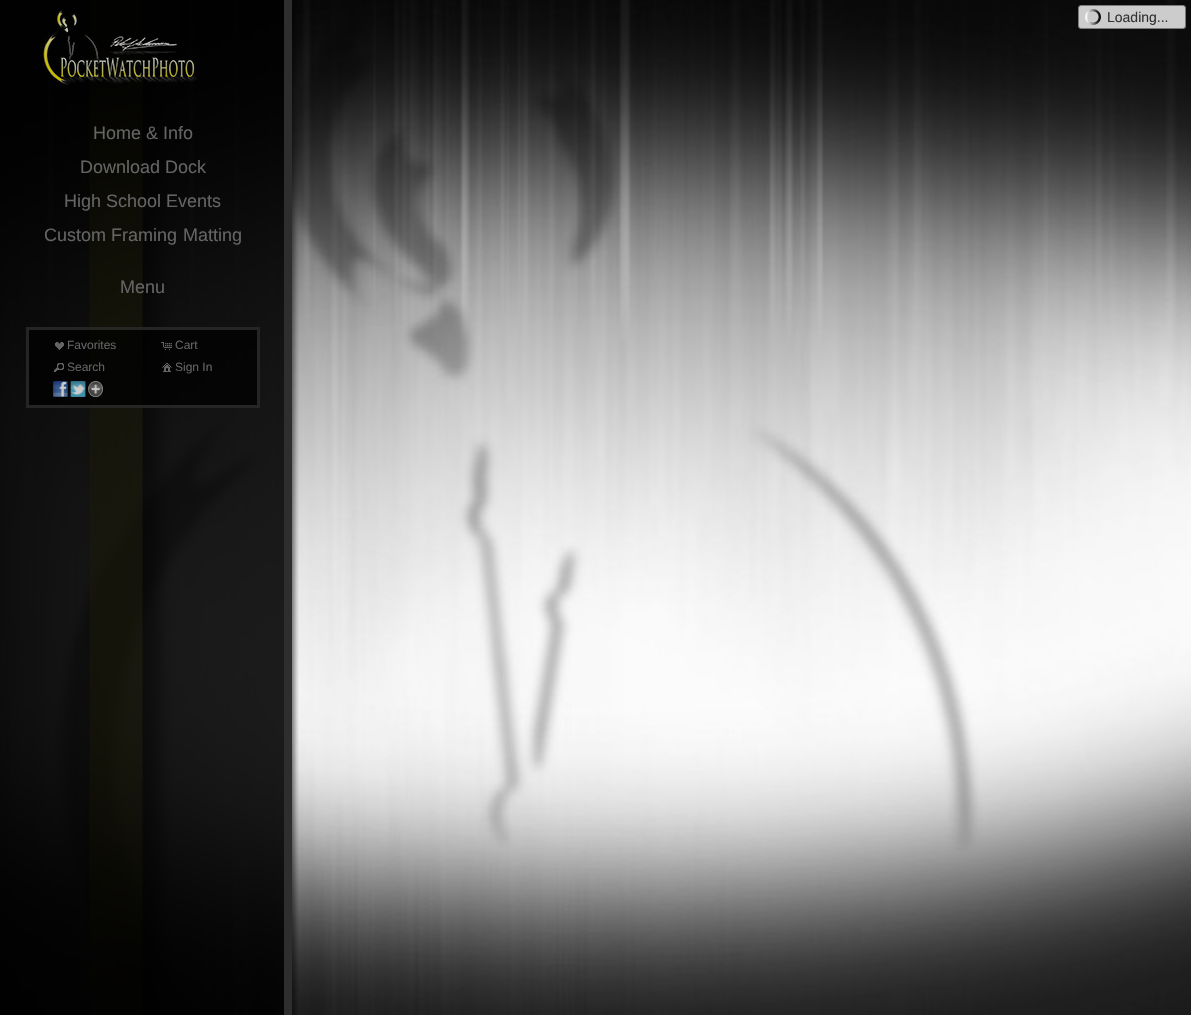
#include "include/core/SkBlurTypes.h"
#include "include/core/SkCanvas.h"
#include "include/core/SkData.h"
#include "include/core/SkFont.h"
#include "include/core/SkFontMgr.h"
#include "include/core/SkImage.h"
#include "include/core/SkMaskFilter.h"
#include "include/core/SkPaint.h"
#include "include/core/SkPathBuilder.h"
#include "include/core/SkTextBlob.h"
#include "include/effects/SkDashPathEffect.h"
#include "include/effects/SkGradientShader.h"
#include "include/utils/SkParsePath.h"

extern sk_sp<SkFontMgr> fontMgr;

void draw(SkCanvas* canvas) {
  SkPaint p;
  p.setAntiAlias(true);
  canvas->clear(SK_ColorWHITE);
  canvas->drawImageRect(SkImages::DeferredFromEncodedData(SkData::MakeFromFileName("images/1.png")), SkRect::MakeLTRB(0, 0, 1191, 1015), SkSamplingOptions());
  p.setColor(SkColorSetRGB(204, 204, 204));
  canvas->drawRoundRect(SkRect::MakeLTRB(1078.5f, 5.5f, 1185.5f, 28.5f), 2.5f, 2.5f, p);
  p.setStyle(SkPaint::kStroke_Style);
  p.setStrokeWidth(1);
  p.setColor(SkColorSetRGB(122, 122, 122));
  canvas->drawRoundRect(SkRect::MakeLTRB(1078.5f, 5.5f, 1185.5f, 28.5f), 2.5f, 2.5f, p);
  canvas->drawImageRect(SkImages::DeferredFromEncodedData(SkData::MakeFromFileName("images/2.png")), SkRect::MakeLTRB(1085, 9, 1101, 25), SkSamplingOptions());
  canvas->save();
  canvas->clipRect(SkRect::MakeLTRB(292, 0, 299, 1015));
  p.setStyle(SkPaint::kFill_Style);
  p.setColor(SkColorSetARGB(128, 0, 0, 0));
  p.setMaskFilter(SkMaskFilter::MakeBlur(kNormal_SkBlurStyle, 2.5f));
  canvas->drawRect(SkRect::MakeLTRB(-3, -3, 295, 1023), p);
  p.setMaskFilter(nullptr);
  canvas->restore();
  p.setColor(SkColorSetARGB(227, 0, 0, 0));
  canvas->drawRect(SkRect::MakeLTRB(0, 0, 292, 1015), p);
  p.setColor(SkColorSetARGB(252, 46, 46, 46));
  canvas->drawRect(SkRect::MakeLTRB(284, 0, 292, 1015), p);
  canvas->drawImageRect(SkImages::DeferredFromEncodedData(SkData::MakeFromFileName("images/3.png")), SkRect::MakeLTRB(43, 10, 197, 85), SkSamplingOptions());
  p.setColor(SkColorSetARGB(201, 0, 0, 0));
  canvas->drawRect(SkRect::MakeLTRB(26, 327, 260, 408), p);
  p.setStyle(SkPaint::kStroke_Style);
  p.setStrokeWidth(3);
  p.setColor(SkColorSetARGB(201, 46, 46, 46));
  canvas->drawRect(SkRect::MakeLTRB(27.5f, 328.5f, 258.5f, 406.5f), p);
  canvas->drawImageRect(SkImages::DeferredFromEncodedData(SkData::MakeFromFileName("images/4.png")), SkRect::MakeLTRB(55, 342, 64, 350), SkSamplingOptions());
  canvas->drawImageRect(SkImages::DeferredFromEncodedData(SkData::MakeFromFileName("images/5.png")), SkRect::MakeLTRB(161, 342, 172, 350), SkSamplingOptions());
  canvas->drawImageRect(SkImages::DeferredFromEncodedData(SkData::MakeFromFileName("images/6.png")), SkRect::MakeLTRB(54, 363, 64, 372), SkSamplingOptions());
  canvas->drawImageRect(SkImages::DeferredFromEncodedData(SkData::MakeFromFileName("images/7.png")), SkRect::MakeLTRB(162, 363, 172, 372), SkSamplingOptions());
  canvas->drawImageRect(SkImages::DeferredFromEncodedData(SkData::MakeFromFileName("images/8.png")), SkRect::MakeLTRB(53, 381, 103, 397), SkSamplingOptions());
  SkFont font1(fontMgr->matchFamilyStyle("Liberation Sans", SkFontStyle::Normal()), 14);
  font1.setSubpixel(true);
  p.setStyle(SkPaint::kFill_Style);
  p.setColor(SkColorSetRGB(51, 51, 51));
  canvas->drawString("Loading...", 1107, 22, font1, p);
  SkFont font2(fontMgr->matchFamilyStyle("Liberation Sans", SkFontStyle::Normal()), 18);
  font2.setSubpixel(true);
  p.setColor(SkColorSetRGB(100, 100, 100));
  canvas->drawString("Home & Info", 93, 139, font2, p);
  canvas->drawString("Download Dock", 80, 173, font2, p);
  canvas->drawString("High School Events", 64, 207, font2, p);
  canvas->drawString("Custom Framing", 44, 241, font2, p);
  canvas->drawString("Matting", 183, 241, font2, p);
  canvas->drawString("Menu", 120, 293, font2, p);
  SkFont font3(fontMgr->matchFamilyStyle("Liberation Sans", SkFontStyle::Normal()), 12);
  font3.setSubpixel(true);
  canvas->drawString("Favorites", 67, 349, font3, p);
  canvas->drawString("Cart", 175, 349, font3, p);
  canvas->drawString("Search", 67, 371, font3, p);
  canvas->drawString("Sign In", 175, 371, font3, p);
}
